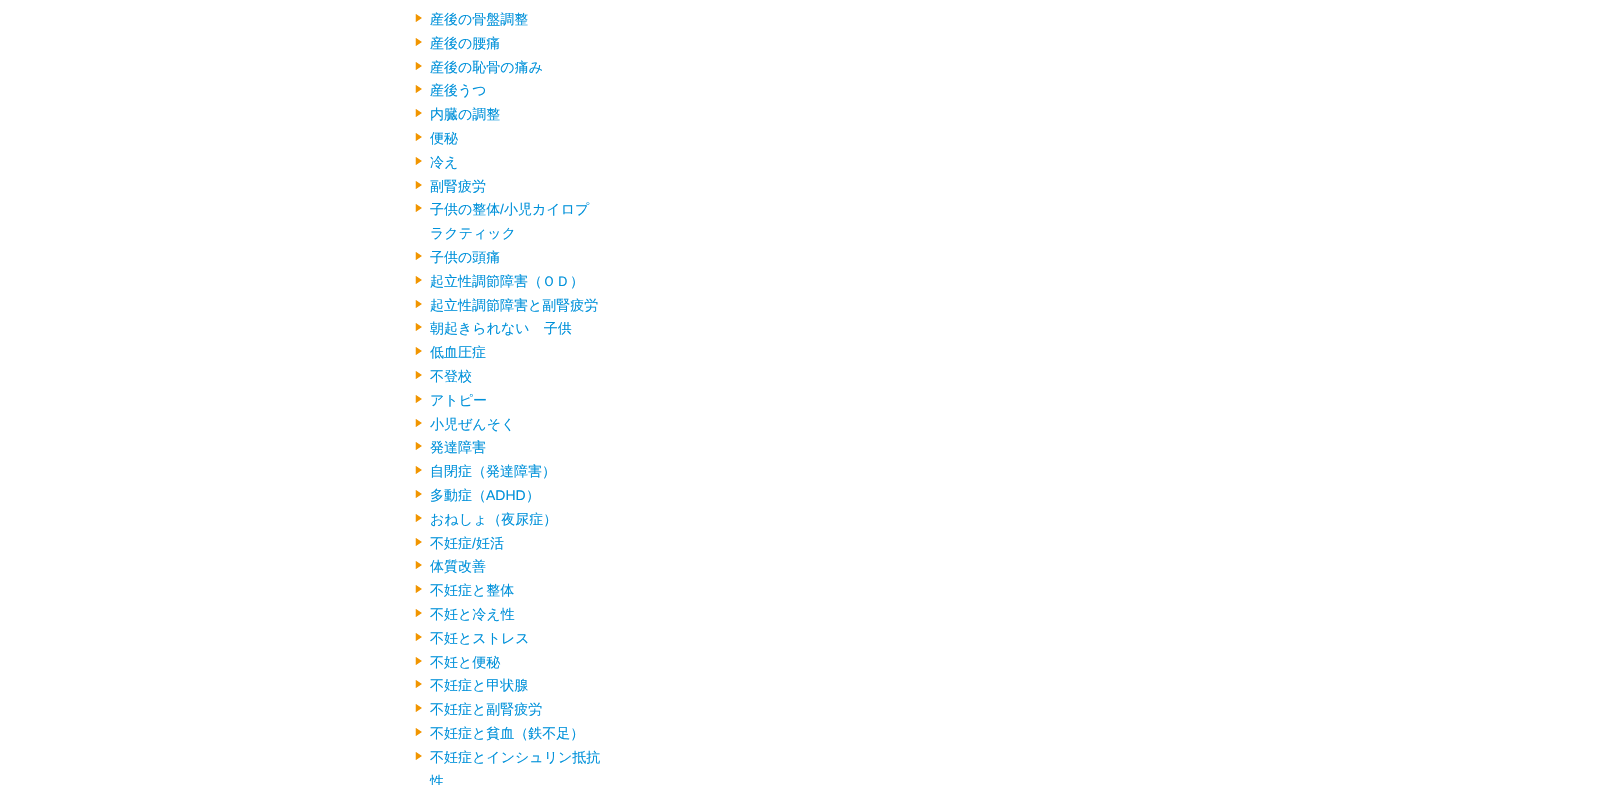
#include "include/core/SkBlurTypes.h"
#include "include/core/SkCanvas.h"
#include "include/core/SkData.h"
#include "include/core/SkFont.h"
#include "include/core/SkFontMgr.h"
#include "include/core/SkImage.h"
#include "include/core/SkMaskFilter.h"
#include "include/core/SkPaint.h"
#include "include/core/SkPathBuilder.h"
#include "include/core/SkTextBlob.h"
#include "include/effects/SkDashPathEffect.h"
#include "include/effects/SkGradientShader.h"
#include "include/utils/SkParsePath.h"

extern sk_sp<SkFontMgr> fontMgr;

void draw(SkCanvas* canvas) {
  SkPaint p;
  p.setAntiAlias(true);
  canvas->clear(SK_ColorWHITE);
  canvas->drawImageRect(SkImages::DeferredFromEncodedData(SkData::MakeFromFileName("images/1.png")), SkRect::MakeLTRB(415, 14, 422, 22), SkSamplingOptions());
  canvas->drawImageRect(SkImages::DeferredFromEncodedData(SkData::MakeFromFileName("images/1.png")), SkRect::MakeLTRB(415, 38, 422, 46), SkSamplingOptions());
  canvas->drawImageRect(SkImages::DeferredFromEncodedData(SkData::MakeFromFileName("images/1.png")), SkRect::MakeLTRB(415, 62, 422, 70), SkSamplingOptions());
  canvas->drawImageRect(SkImages::DeferredFromEncodedData(SkData::MakeFromFileName("images/1.png")), SkRect::MakeLTRB(415, 85, 422, 93), SkSamplingOptions());
  canvas->drawImageRect(SkImages::DeferredFromEncodedData(SkData::MakeFromFileName("images/1.png")), SkRect::MakeLTRB(415, 109, 422, 117), SkSamplingOptions());
  canvas->drawImageRect(SkImages::DeferredFromEncodedData(SkData::MakeFromFileName("images/1.png")), SkRect::MakeLTRB(415, 133, 422, 141), SkSamplingOptions());
  canvas->drawImageRect(SkImages::DeferredFromEncodedData(SkData::MakeFromFileName("images/1.png")), SkRect::MakeLTRB(415, 157, 422, 165), SkSamplingOptions());
  canvas->drawImageRect(SkImages::DeferredFromEncodedData(SkData::MakeFromFileName("images/1.png")), SkRect::MakeLTRB(415, 181, 422, 189), SkSamplingOptions());
  canvas->drawImageRect(SkImages::DeferredFromEncodedData(SkData::MakeFromFileName("images/1.png")), SkRect::MakeLTRB(415, 204, 422, 212), SkSamplingOptions());
  canvas->drawImageRect(SkImages::DeferredFromEncodedData(SkData::MakeFromFileName("images/1.png")), SkRect::MakeLTRB(415, 252, 422, 260), SkSamplingOptions());
  canvas->drawImageRect(SkImages::DeferredFromEncodedData(SkData::MakeFromFileName("images/1.png")), SkRect::MakeLTRB(415, 276, 422, 284), SkSamplingOptions());
  canvas->drawImageRect(SkImages::DeferredFromEncodedData(SkData::MakeFromFileName("images/1.png")), SkRect::MakeLTRB(415, 300, 422, 308), SkSamplingOptions());
  canvas->drawImageRect(SkImages::DeferredFromEncodedData(SkData::MakeFromFileName("images/1.png")), SkRect::MakeLTRB(415, 323, 422, 331), SkSamplingOptions());
  canvas->drawImageRect(SkImages::DeferredFromEncodedData(SkData::MakeFromFileName("images/1.png")), SkRect::MakeLTRB(415, 347, 422, 355), SkSamplingOptions());
  canvas->drawImageRect(SkImages::DeferredFromEncodedData(SkData::MakeFromFileName("images/1.png")), SkRect::MakeLTRB(415, 371, 422, 379), SkSamplingOptions());
  canvas->drawImageRect(SkImages::DeferredFromEncodedData(SkData::MakeFromFileName("images/1.png")), SkRect::MakeLTRB(415, 395, 422, 403), SkSamplingOptions());
  canvas->drawImageRect(SkImages::DeferredFromEncodedData(SkData::MakeFromFileName("images/1.png")), SkRect::MakeLTRB(415, 419, 422, 427), SkSamplingOptions());
  canvas->drawImageRect(SkImages::DeferredFromEncodedData(SkData::MakeFromFileName("images/1.png")), SkRect::MakeLTRB(415, 442, 422, 450), SkSamplingOptions());
  canvas->drawImageRect(SkImages::DeferredFromEncodedData(SkData::MakeFromFileName("images/1.png")), SkRect::MakeLTRB(415, 466, 422, 474), SkSamplingOptions());
  canvas->drawImageRect(SkImages::DeferredFromEncodedData(SkData::MakeFromFileName("images/1.png")), SkRect::MakeLTRB(415, 490, 422, 498), SkSamplingOptions());
  canvas->drawImageRect(SkImages::DeferredFromEncodedData(SkData::MakeFromFileName("images/1.png")), SkRect::MakeLTRB(415, 514, 422, 522), SkSamplingOptions());
  canvas->drawImageRect(SkImages::DeferredFromEncodedData(SkData::MakeFromFileName("images/1.png")), SkRect::MakeLTRB(415, 538, 422, 546), SkSamplingOptions());
  canvas->drawImageRect(SkImages::DeferredFromEncodedData(SkData::MakeFromFileName("images/1.png")), SkRect::MakeLTRB(415, 561, 422, 569), SkSamplingOptions());
  canvas->drawImageRect(SkImages::DeferredFromEncodedData(SkData::MakeFromFileName("images/1.png")), SkRect::MakeLTRB(415, 585, 422, 593), SkSamplingOptions());
  canvas->drawImageRect(SkImages::DeferredFromEncodedData(SkData::MakeFromFileName("images/1.png")), SkRect::MakeLTRB(415, 609, 422, 617), SkSamplingOptions());
  canvas->drawImageRect(SkImages::DeferredFromEncodedData(SkData::MakeFromFileName("images/1.png")), SkRect::MakeLTRB(415, 633, 422, 641), SkSamplingOptions());
  canvas->drawImageRect(SkImages::DeferredFromEncodedData(SkData::MakeFromFileName("images/1.png")), SkRect::MakeLTRB(415, 657, 422, 665), SkSamplingOptions());
  canvas->drawImageRect(SkImages::DeferredFromEncodedData(SkData::MakeFromFileName("images/1.png")), SkRect::MakeLTRB(415, 680, 422, 688), SkSamplingOptions());
  canvas->drawImageRect(SkImages::DeferredFromEncodedData(SkData::MakeFromFileName("images/1.png")), SkRect::MakeLTRB(415, 704, 422, 712), SkSamplingOptions());
  canvas->drawImageRect(SkImages::DeferredFromEncodedData(SkData::MakeFromFileName("images/1.png")), SkRect::MakeLTRB(415, 728, 422, 736), SkSamplingOptions());
  canvas->drawImageRect(SkImages::DeferredFromEncodedData(SkData::MakeFromFileName("images/1.png")), SkRect::MakeLTRB(415, 752, 422, 760), SkSamplingOptions());
  SkFont font1(fontMgr->matchFamilyStyle("WenQuanYi Zen Hei", SkFontStyle(500, SkFontStyle::kNormal_Width, SkFontStyle::kUpright_Slant)), 14);
  font1.setSubpixel(true);
  p.setColor(SkColorSetRGB(0, 145, 218));
  canvas->drawString("産後の骨盤調整", 430, 24, font1, p);
  canvas->drawString("産後の腰痛", 430, 48, font1, p);
  canvas->drawString("産後の恥骨の痛み", 430, 72, font1, p);
  canvas->drawString("産後うつ", 430, 95, font1, p);
  canvas->drawString("内臓の調整", 430, 119, font1, p);
  canvas->drawString("便秘", 430, 143, font1, p);
  canvas->drawString("冷え", 430, 167, font1, p);
  canvas->drawString("副腎疲労", 430, 191, font1, p);
  canvas->drawString("子供の整体", 430, 214, font1, p);
  SkFont font2(fontMgr->matchFamilyStyle("Liberation Sans", SkFontStyle::Normal()), 14);
  font2.setSubpixel(true);
  canvas->drawString("/", 500, 214, font2, p);
  canvas->drawString("小児カイロプ", 504, 214, font1, p);
  canvas->drawString("ラクティック", 430, 238, font1, p);
  canvas->drawString("子供の頭痛", 430, 262, font1, p);
  canvas->drawString("起立性調節障害（ＯＤ）", 430, 286, font1, p);
  canvas->drawString("起立性調節障害と副腎疲労", 430, 310, font1, p);
  canvas->drawString("朝起きられない　子供", 430, 333, font1, p);
  canvas->drawString("低血圧症", 430, 357, font1, p);
  canvas->drawString("不登校", 430, 381, font1, p);
  canvas->drawString("アトピー", 430, 405, font1, p);
  canvas->drawString("小児ぜんそく", 430, 429, font1, p);
  canvas->drawString("発達障害", 430, 452, font1, p);
  canvas->drawString("自閉症（発達障害）", 430, 476, font1, p);
  canvas->drawString("多動症（", 430, 500, font1, p);
  canvas->drawString("ADHD", 486, 500, font2, p);
  canvas->drawString("）", 526, 500, font1, p);
  canvas->drawString("おねしょ（夜尿症）", 430, 524, font1, p);
  canvas->drawString("不妊症", 430, 548, font1, p);
  canvas->drawString("/", 472, 548, font2, p);
  canvas->drawString("妊活", 476, 548, font1, p);
  canvas->drawString("体質改善", 430, 571, font1, p);
  canvas->drawString("不妊症と整体", 430, 595, font1, p);
  canvas->drawString("不妊と冷え性", 430, 619, font1, p);
  canvas->drawString("不妊とストレス", 430, 643, font1, p);
  canvas->drawString("不妊と便秘", 430, 667, font1, p);
  canvas->drawString("不妊症と甲状腺", 430, 690, font1, p);
  canvas->drawString("不妊症と副腎疲労", 430, 714, font1, p);
  canvas->drawString("不妊症と貧血（鉄不足）", 430, 738, font1, p);
  canvas->drawString("不妊症とインシュリン抵抗", 430, 762, font1, p);
  canvas->drawString("性", 430, 786, font1, p);
}
